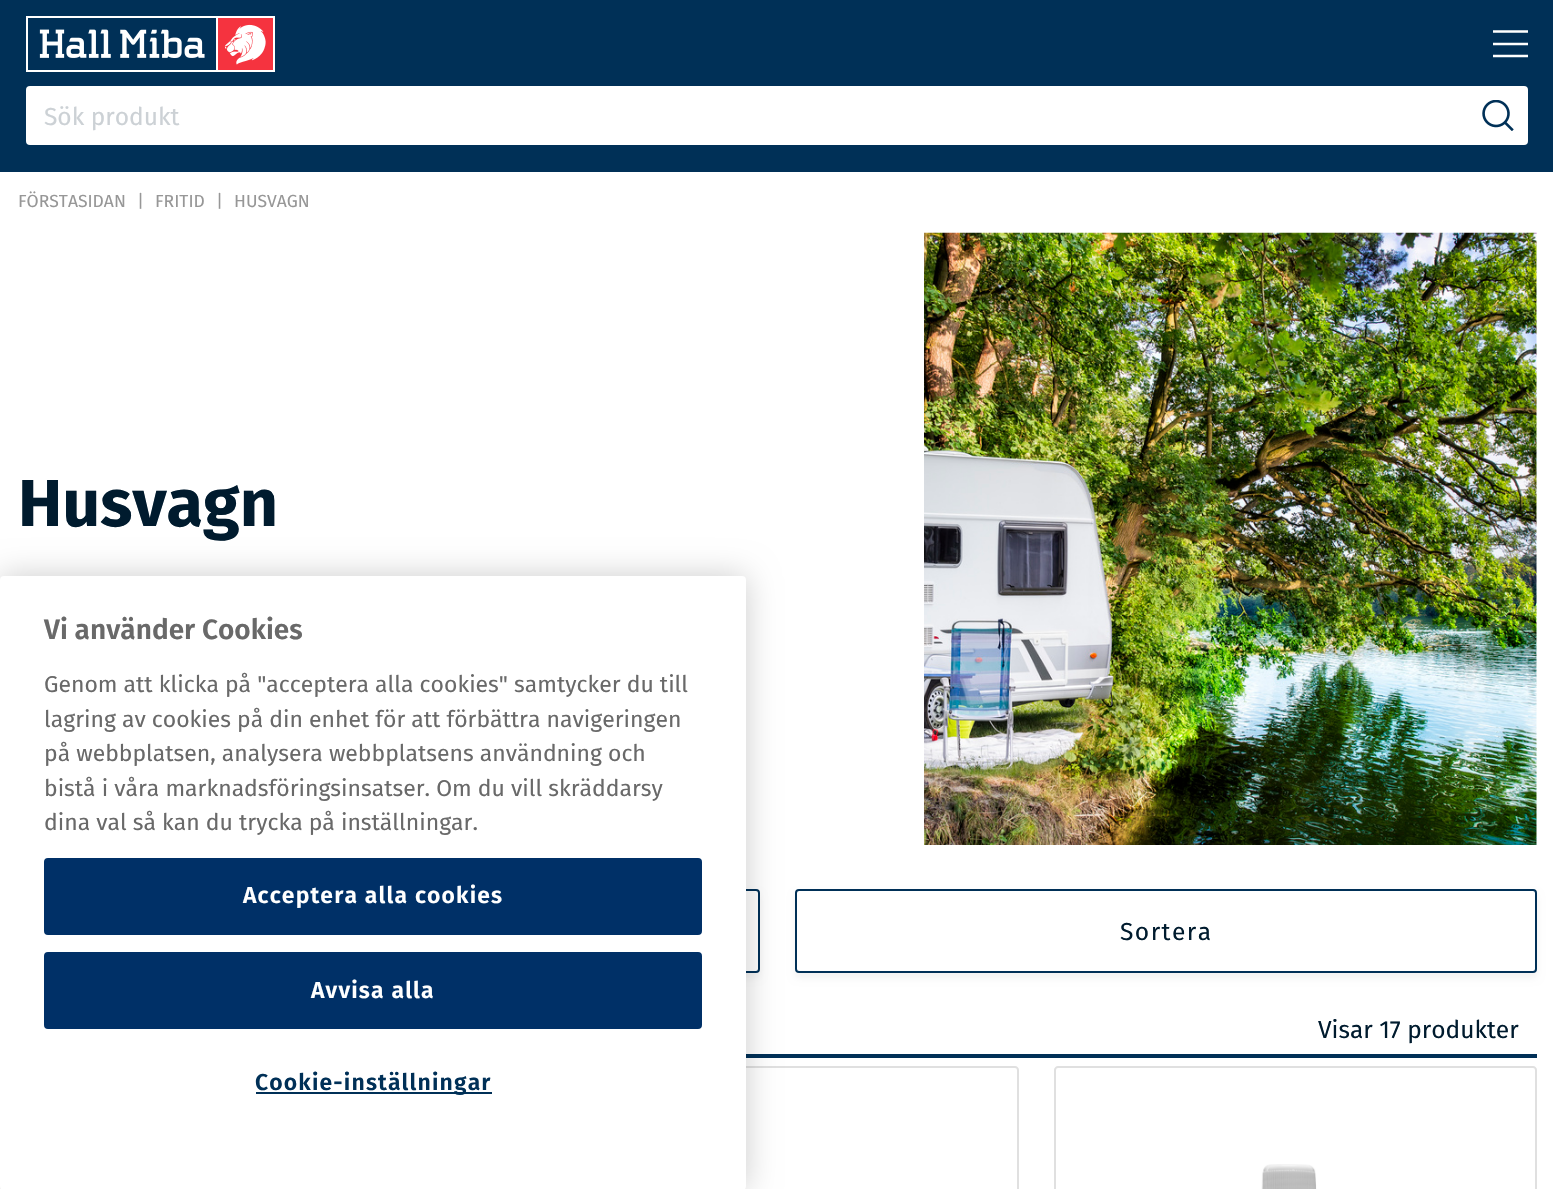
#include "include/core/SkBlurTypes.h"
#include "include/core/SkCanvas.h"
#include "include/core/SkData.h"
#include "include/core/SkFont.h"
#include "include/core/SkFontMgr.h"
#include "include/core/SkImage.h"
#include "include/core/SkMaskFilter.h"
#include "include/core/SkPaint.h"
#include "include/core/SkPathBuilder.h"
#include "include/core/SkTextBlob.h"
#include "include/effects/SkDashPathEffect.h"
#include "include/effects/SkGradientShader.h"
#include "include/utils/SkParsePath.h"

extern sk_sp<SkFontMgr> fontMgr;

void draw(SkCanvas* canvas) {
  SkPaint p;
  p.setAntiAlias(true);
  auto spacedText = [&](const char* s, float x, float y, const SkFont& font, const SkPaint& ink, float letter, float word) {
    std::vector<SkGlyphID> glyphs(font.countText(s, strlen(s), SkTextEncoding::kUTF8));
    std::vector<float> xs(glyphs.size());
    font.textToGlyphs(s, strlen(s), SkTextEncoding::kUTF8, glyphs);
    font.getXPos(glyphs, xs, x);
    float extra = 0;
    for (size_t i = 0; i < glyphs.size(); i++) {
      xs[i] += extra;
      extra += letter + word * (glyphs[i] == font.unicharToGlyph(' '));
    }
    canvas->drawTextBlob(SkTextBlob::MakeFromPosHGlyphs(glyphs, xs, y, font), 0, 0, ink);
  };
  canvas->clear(SK_ColorWHITE);
  p.setColor(SkColorSetRGB(0, 48, 87));
  canvas->drawRect(SkRect::MakeLTRB(0, 0, 1553, 172), p);
  canvas->drawImageRect(SkImages::DeferredFromEncodedData(SkData::MakeFromFileName("images/1.png")), SkRect::MakeLTRB(26, 16, 275, 72), SkSamplingOptions());
  p.setStyle(SkPaint::kStroke_Style);
  p.setStrokeWidth(2.4f);
  p.setColor(SK_ColorWHITE);
  canvas->drawPath(SkPathBuilder().moveTo(1493, 44).lineTo(1528, 44).moveTo(1493, 56).lineTo(1528, 56).moveTo(1493, 31.5f).lineTo(1528, 31.5f).detach(), p);
  p.setStyle(SkPaint::kFill_Style);
  canvas->drawRoundRect(SkRect::MakeLTRB(26, 86, 1528, 145), 4, 4, p);
  canvas->drawImageRect(SkImages::DeferredFromEncodedData(SkData::MakeFromFileName("images/2.png")), SkRect::MakeLTRB(1482, 100, 1514, 131), SkSamplingOptions());
  canvas->drawImageRect(SkImages::DeferredFromEncodedData(SkData::MakeFromFileName("images/3.png")), SkRect::MakeLTRB(924, 232, 1537, 845), SkSamplingOptions());
  canvas->save();
  canvas->clipPath(SkPathBuilder(SkPathFillType::kEvenOdd).moveTo(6, 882).lineTo(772, 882).lineTo(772, 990).lineTo(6, 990).close().moveTo(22, 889).lineTo(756, 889).cubicTo(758, 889, 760, 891, 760, 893).lineTo(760, 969).cubicTo(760, 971, 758, 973, 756, 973).lineTo(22, 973).cubicTo(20, 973, 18, 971, 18, 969).lineTo(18, 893).cubicTo(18, 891, 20, 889, 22, 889).close().detach(), true);
  p.setColor(SkColorSetARGB(13, 0, 0, 0));
  p.setMaskFilter(SkMaskFilter::MakeBlur(kNormal_SkBlurStyle, 3.5f));
  canvas->drawRoundRect(SkRect::MakeLTRB(18, 894, 760, 978), 4, 4, p);
  p.setMaskFilter(nullptr);
  canvas->restore();
  p.setStyle(SkPaint::kStroke_Style);
  p.setStrokeWidth(2);
  p.setColor(SkColorSetRGB(0, 48, 87));
  canvas->drawRoundRect(SkRect::MakeLTRB(19, 890, 759, 972), 3, 3, p);
  canvas->save();
  canvas->clipPath(SkPathBuilder(SkPathFillType::kEvenOdd).moveTo(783, 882).lineTo(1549, 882).lineTo(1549, 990).lineTo(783, 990).close().moveTo(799, 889).lineTo(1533, 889).cubicTo(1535, 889, 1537, 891, 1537, 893).lineTo(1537, 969).cubicTo(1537, 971, 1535, 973, 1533, 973).lineTo(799, 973).cubicTo(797, 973, 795, 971, 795, 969).lineTo(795, 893).cubicTo(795, 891, 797, 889, 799, 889).close().detach(), true);
  p.setStyle(SkPaint::kFill_Style);
  p.setColor(SkColorSetARGB(13, 0, 0, 0));
  p.setMaskFilter(SkMaskFilter::MakeBlur(kNormal_SkBlurStyle, 3.5f));
  canvas->drawRoundRect(SkRect::MakeLTRB(795, 894, 1537, 978), 4, 4, p);
  p.setMaskFilter(nullptr);
  canvas->restore();
  p.setStyle(SkPaint::kStroke_Style);
  p.setColor(SkColorSetRGB(0, 48, 87));
  canvas->drawRoundRect(SkRect::MakeLTRB(796, 890, 1536, 972), 3, 3, p);
  p.setStyle(SkPaint::kFill_Style);
  canvas->drawRect(SkRect::MakeLTRB(746, 1054, 1537, 1058), p);
  p.setStyle(SkPaint::kStroke_Style);
  p.setColor(SkColorSetRGB(224, 224, 224));
  canvas->drawPath(SkPathBuilder().moveTo(540, 1067).lineTo(1015, 1067).cubicTo(1016.5f, 1067, 1018, 1068.5f, 1018, 1070).lineTo(1018, 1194).lineTo(537, 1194).lineTo(537, 1070).cubicTo(537, 1068.5f, 538.5f, 1067, 540, 1067).close().detach(), p);
  canvas->drawPath(SkPathBuilder().moveTo(1058, 1067).lineTo(1533, 1067).cubicTo(1534.5f, 1067, 1536, 1068.5f, 1536, 1070).lineTo(1536, 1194).lineTo(1055, 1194).lineTo(1055, 1070).cubicTo(1055, 1068.5f, 1056.5f, 1067, 1058, 1067).close().detach(), p);
  canvas->drawImageRect(SkImages::DeferredFromEncodedData(SkData::MakeFromFileName("images/4.png")), SkRect::MakeLTRB(1261, 1164, 1317, 1189), SkSamplingOptions());
  p.setStyle(SkPaint::kFill_Style);
  p.setColor(SkColorSetARGB(51, 0, 0, 0));
  p.setMaskFilter(SkMaskFilter::MakeBlur(kNormal_SkBlurStyle, 16));
  canvas->drawRoundRect(SkRect::MakeLTRB(0, 576, 746, 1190), 4, 4, p);
  p.setMaskFilter(nullptr);
  p.setColor(SK_ColorWHITE);
  canvas->drawRoundRect(SkRect::MakeLTRB(0, 576, 746, 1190), 4, 4, p);
  p.setColor(SkColorSetRGB(0, 48, 103));
  canvas->drawRoundRect(SkRect::MakeLTRB(45, 859, 701, 934), 3, 3, p);
  p.setStyle(SkPaint::kStroke_Style);
  canvas->drawRoundRect(SkRect::MakeLTRB(45, 859, 701, 934), 3, 3, p);
  p.setStyle(SkPaint::kFill_Style);
  canvas->drawRoundRect(SkRect::MakeLTRB(45, 953, 701, 1028), 3, 3, p);
  p.setStyle(SkPaint::kStroke_Style);
  canvas->drawRoundRect(SkRect::MakeLTRB(45, 953, 701, 1028), 3, 3, p);
  p.setStyle(SkPaint::kFill_Style);
  p.setColor(SkColorSetRGB(0, 48, 87));
  canvas->drawRect(SkRect::MakeLTRB(256, 1092, 492, 1094), p);
  SkFont font1(fontMgr->matchFamilyStyle("Fira Sans", SkFontStyle::Normal()), 24.5f);
  font1.setSubpixel(true);
  p.setColor(SkColorSetRGB(204, 209, 213));
  canvas->drawString("Sök produkt", 44, 125, font1, p);
  SkFont font2(fontMgr->matchFamilyStyle("Fira Sans", SkFontStyle::Normal()), 17.5f);
  font2.setSubpixel(true);
  p.setColor(SkColorSetRGB(151, 151, 151));
  canvas->drawString("FÖRSTASIDAN", 18, 207, font2, p);
  canvas->drawString("|", 137, 207, font2, p);
  canvas->drawString("FRITID", 155, 207, font2, p);
  canvas->drawString("|", 216, 207, font2, p);
  canvas->drawString("HUSVAGN", 234, 207, font2, p);
  SkFont font3(fontMgr->matchFamilyStyle("Fira Sans", SkFontStyle::Bold()), 66.5f);
  font3.setSubpixel(true);
  p.setColor(SkColorSetRGB(0, 27, 46));
  canvas->drawString("Husvagn", 18, 526, font3, p);
  spacedText("Sortera", 1120, 940, font1, p, 1.5f, 0);
  canvas->drawString("Visar 17 produkter", 1318, 1038, font1, p);
  SkFont font4(fontMgr->matchFamilyStyle("Fira Sans", SkFontStyle(600, SkFontStyle::kNormal_Width, SkFontStyle::kUpright_Slant)), 28);
  font4.setSubpixel(true);
  p.setColor(SkColorSetRGB(105, 105, 105));
  canvas->drawString("Vi använder Cookies", 44, 639, font4, p);
  SkFont font5(fontMgr->matchFamilyStyle("Fira Sans", SkFontStyle::Normal()), 22.95f);
  font5.setSubpixel(true);
  canvas->drawString("Genom att klicka på \"acceptera alla cookies\" samtycker du till", 44, 692, font5, p);
  canvas->drawString("lagring av cookies på din enhet för att förbättra navigeringen", 44, 727, font5, p);
  canvas->drawString("på webbplatsen, analysera webbplatsens användning och", 44, 761, font5, p);
  canvas->drawString("bistå i våra marknadsföringsinsatser. Om du vill skräddarsy", 44, 796, font5, p);
  canvas->drawString("dina val så kan du trycka på inställningar.", 44, 830, font5, p);
  SkFont font6(fontMgr->matchFamilyStyle("Fira Sans", SkFontStyle(600, SkFontStyle::kNormal_Width, SkFontStyle::kUpright_Slant)), 22.95f);
  font6.setSubpixel(true);
  p.setColor(SK_ColorWHITE);
  spacedText("Acceptera alla cookies", 243, 903, font6, p, 1.15f, 0);
  spacedText("Avvisa alla", 311, 998, font6, p, 1.15f, 0);
  p.setColor(SkColorSetRGB(0, 48, 87));
  spacedText("Cookie-inställningar", 255, 1090, font6, p, 1.15f, 0);
}
